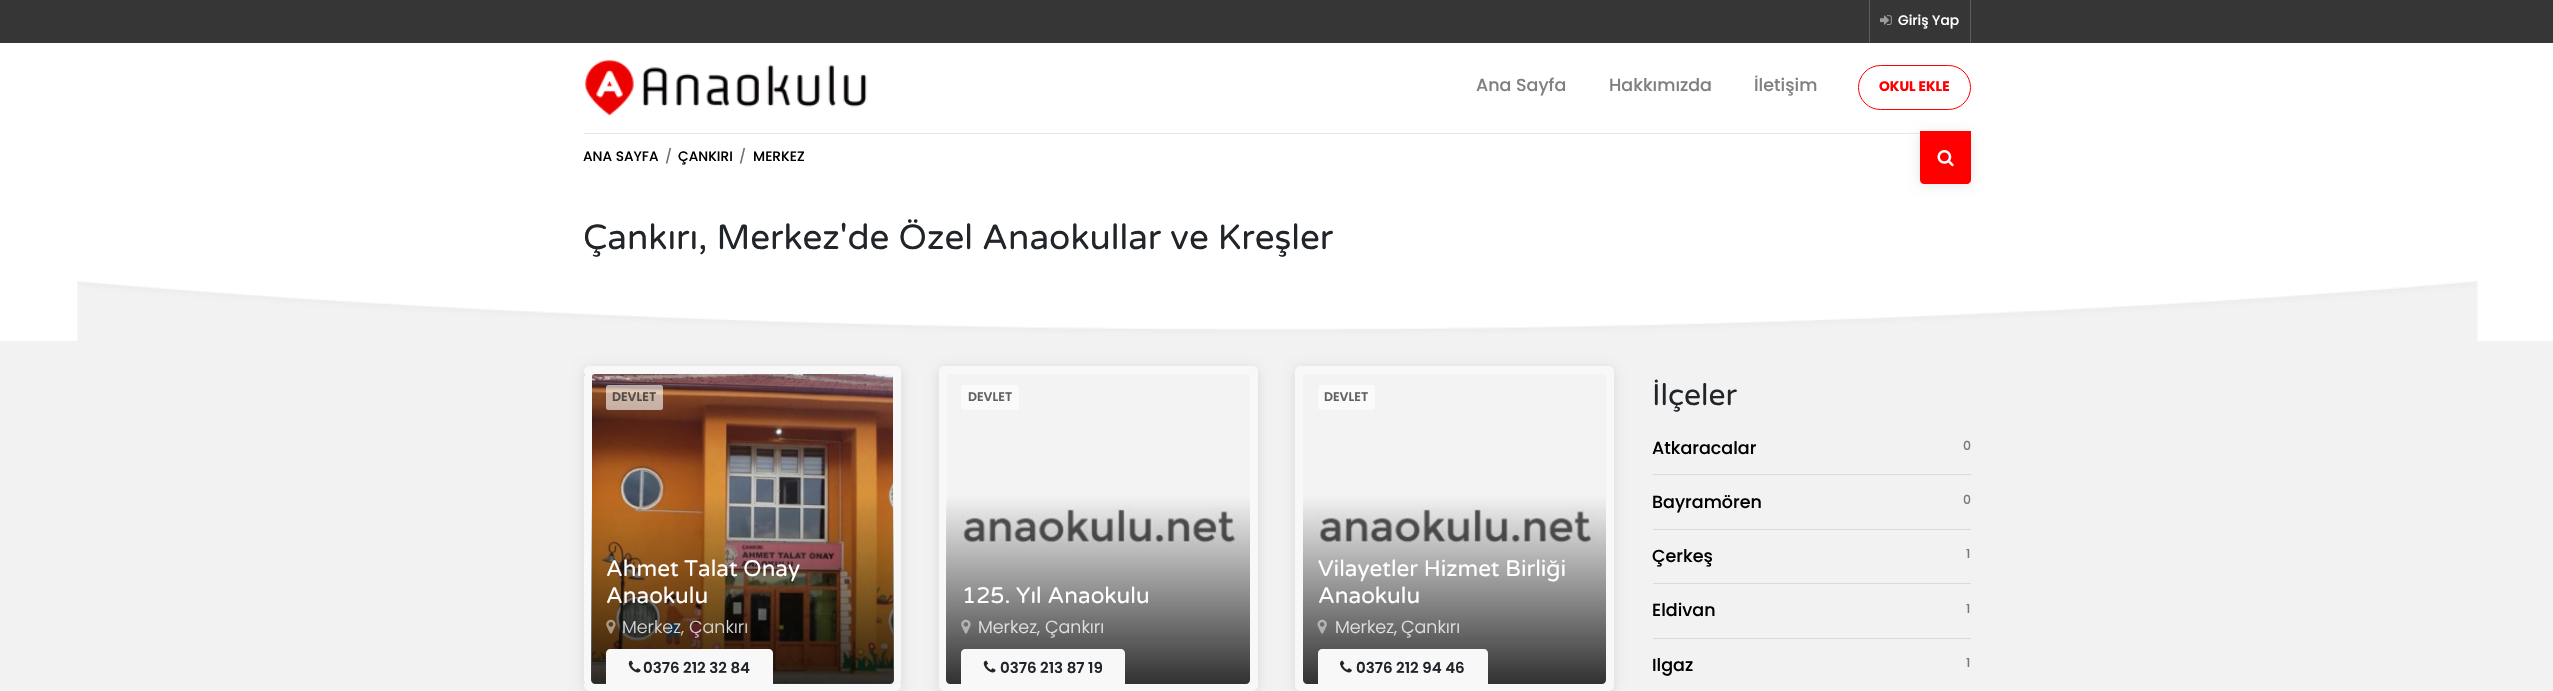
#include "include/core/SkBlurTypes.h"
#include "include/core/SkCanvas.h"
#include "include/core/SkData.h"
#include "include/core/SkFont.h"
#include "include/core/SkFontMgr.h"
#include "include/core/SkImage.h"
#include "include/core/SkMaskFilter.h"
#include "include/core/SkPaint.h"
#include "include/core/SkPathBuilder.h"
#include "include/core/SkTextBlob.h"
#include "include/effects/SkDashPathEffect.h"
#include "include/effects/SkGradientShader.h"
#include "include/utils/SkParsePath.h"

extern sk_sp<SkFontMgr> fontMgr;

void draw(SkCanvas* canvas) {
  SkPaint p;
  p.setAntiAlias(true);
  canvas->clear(SkColorSetRGB(242, 242, 242));
  p.setColor(SK_ColorWHITE);
  canvas->drawRect(SkRect::MakeLTRB(0, 43, 2553, 341), p);
  p.setColor(SkColorSetRGB(54, 54, 54));
  canvas->drawRect(SkRect::MakeLTRB(0, 0, 2553, 43), p);
  p.setColor(SkColorSetRGB(94, 94, 94));
  canvas->drawRect(SkRect::MakeLTRB(1970, 0, 1971, 43), p);
  canvas->drawRect(SkRect::MakeLTRB(1869, 0, 1870, 43), p);
  canvas->drawImageRect(SkImages::DeferredFromEncodedData(SkData::MakeFromFileName("images/1.png")), SkRect::MakeLTRB(1880, 15, 1892, 25), SkSamplingOptions());
  p.setColor(SkColorSetRGB(230, 230, 230));
  canvas->drawRect(SkRect::MakeLTRB(584, 133, 1920, 134), p);
  canvas->drawImageRect(SkImages::DeferredFromEncodedData(SkData::MakeFromFileName("images/2.png")), SkRect::MakeLTRB(584, 59, 867, 116), SkSamplingOptions());
  p.setStyle(SkPaint::kStroke_Style);
  p.setStrokeWidth(1);
  p.setColor(SkColorSetRGB(255, 0, 0));
  canvas->drawRoundRect(SkRect::MakeLTRB(1858.5f, 65.5f, 1970.5f, 109.5f), 22, 22, p);
  p.setStyle(SkPaint::kFill_Style);
  p.setColor(SkColorSetARGB(26, 0, 0, 0));
  p.setMaskFilter(SkMaskFilter::MakeBlur(kNormal_SkBlurStyle, 6));
  canvas->drawRoundRect(SkRect::MakeLTRB(1920, 133, 1971, 185), 4, 4, p);
  p.setMaskFilter(nullptr);
  p.setColor(SkColorSetRGB(255, 0, 0));
  canvas->drawPath(SkPathBuilder().moveTo(1920, 131).lineTo(1971, 131).lineTo(1971, 180).cubicTo(1971, 182, 1969, 184, 1967, 184).lineTo(1924, 184).cubicTo(1922, 184, 1920, 182, 1920, 180).close().detach(), p);
  canvas->drawImageRect(SkImages::DeferredFromEncodedData(SkData::MakeFromFileName("images/3.png")), SkRect::MakeLTRB(1937, 150, 1954, 167), SkSamplingOptions());
  canvas->drawImageRect(SkImages::DeferredFromEncodedData(SkData::MakeFromFileName("images/4.png")), SkRect::MakeLTRB(77, 281, 2478, 341), SkSamplingOptions());
  p.setColor(SkColorSetARGB(26, 0, 0, 0));
  p.setMaskFilter(SkMaskFilter::MakeBlur(kNormal_SkBlurStyle, 6));
  canvas->drawRoundRect(SkRect::MakeLTRB(584, 368, 901, 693), 6, 6, p);
  p.setMaskFilter(nullptr);
  p.setColor(SK_ColorWHITE);
  canvas->drawRoundRect(SkRect::MakeLTRB(584, 366, 901, 691), 6, 6, p);
  canvas->save();
  canvas->clipPath(SkPathBuilder().moveTo(590, 366).lineTo(895, 366).cubicTo(898.5f, 366, 901, 368.5f, 901, 372).lineTo(901, 685).cubicTo(901, 688.5f, 898.5f, 691, 895, 691).lineTo(590, 691).cubicTo(586.5f, 691, 584, 688.5f, 584, 685).lineTo(584, 372).cubicTo(584, 368.5f, 586.5f, 366, 590, 366).close().detach(), true);
  p.setColor(SkColorSetRGB(248, 248, 248));
  canvas->drawPath(SkPathBuilder().moveTo(592, 366).lineTo(893, 366).cubicTo(897.5f, 366, 901, 369.5f, 901, 374).lineTo(901, 685).cubicTo(901, 688.5f, 898.5f, 691, 895, 691).lineTo(590, 691).cubicTo(586.5f, 691, 584, 688.5f, 584, 685).lineTo(584, 374).cubicTo(584, 369.5f, 587.5f, 366, 592, 366).close().detach(), p);
  canvas->restore();
  canvas->drawImageRect(SkImages::DeferredFromEncodedData(SkData::MakeFromFileName("images/5.png")), SkRect::MakeLTRB(584, 373, 901, 684), SkSamplingOptions());
  p.setStyle(SkPaint::kStroke_Style);
  p.setStrokeWidth(8);
  canvas->drawRoundRect(SkRect::MakeLTRB(588, 370, 897, 687), 7, 7, p);
  p.setStyle(SkPaint::kFill_Style);
  {
    const SkColor colors[] = {SkColorSetARGB(0, 0, 0, 0), SkColorSetARGB(204, 0, 0, 0)};
    const float stops[] = {0, 1};
    const SkPoint ends[] = {{743, 496}, {743, 684}};
    p.setShader(SkGradientShader::MakeLinear(ends, colors, stops, 2, SkTileMode::kClamp));
    p.setAlpha(255);
  }
  canvas->drawPath(SkPathBuilder().moveTo(591, 496).lineTo(894, 496).lineTo(894, 680).cubicTo(894, 682, 892, 684, 890, 684).lineTo(595, 684).cubicTo(593, 684, 591, 682, 591, 680).close().detach(), p);
  p.setShader(nullptr);
  p.setColor(SkColorSetARGB(153, 255, 255, 255));
  canvas->drawRoundRect(SkRect::MakeLTRB(606, 385, 663, 410), 2.5f, 2.5f, p);
  canvas->drawImageRect(SkImages::DeferredFromEncodedData(SkData::MakeFromFileName("images/6.png")), SkRect::MakeLTRB(606, 619, 616, 634), SkSamplingOptions());
  p.setColor(SkColorSetRGB(248, 248, 248));
  canvas->drawPath(SkPathBuilder().moveTo(610, 649).lineTo(769, 649).cubicTo(771, 649, 773, 651, 773, 653).lineTo(773, 685).lineTo(606, 685).lineTo(606, 653).cubicTo(606, 651, 608, 649, 610, 649).close().detach(), p);
  canvas->drawImageRect(SkImages::DeferredFromEncodedData(SkData::MakeFromFileName("images/7.png")), SkRect::MakeLTRB(628, 660, 641, 673), SkSamplingOptions());
  p.setColor(SkColorSetARGB(26, 0, 0, 0));
  p.setMaskFilter(SkMaskFilter::MakeBlur(kNormal_SkBlurStyle, 6));
  canvas->drawRoundRect(SkRect::MakeLTRB(939, 368, 1258, 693), 6, 6, p);
  p.setMaskFilter(nullptr);
  p.setColor(SK_ColorWHITE);
  canvas->drawRoundRect(SkRect::MakeLTRB(939, 366, 1258, 691), 6, 6, p);
  canvas->save();
  canvas->clipPath(SkPathBuilder().moveTo(945, 366).lineTo(1252, 366).cubicTo(1255.5f, 366, 1258, 368.5f, 1258, 372).lineTo(1258, 685).cubicTo(1258, 688.5f, 1255.5f, 691, 1252, 691).lineTo(945, 691).cubicTo(941.5f, 691, 939, 688.5f, 939, 685).lineTo(939, 372).cubicTo(939, 368.5f, 941.5f, 366, 945, 366).close().detach(), true);
  p.setColor(SkColorSetRGB(248, 248, 248));
  canvas->drawPath(SkPathBuilder().moveTo(947, 366).lineTo(1250, 366).cubicTo(1254.5f, 366, 1258, 369.5f, 1258, 374).lineTo(1258, 685).cubicTo(1258, 688.5f, 1255.5f, 691, 1252, 691).lineTo(945, 691).cubicTo(941.5f, 691, 939, 688.5f, 939, 685).lineTo(939, 374).cubicTo(939, 369.5f, 942.5f, 366, 947, 366).close().detach(), p);
  canvas->restore();
  canvas->drawImageRect(SkImages::DeferredFromEncodedData(SkData::MakeFromFileName("images/8.png")), SkRect::MakeLTRB(939, 374, 1250, 683), SkSamplingOptions());
  p.setStyle(SkPaint::kStroke_Style);
  canvas->drawRoundRect(SkRect::MakeLTRB(943, 370, 1254, 687), 7, 7, p);
  p.setStyle(SkPaint::kFill_Style);
  {
    const SkColor colors[] = {SkColorSetARGB(0, 0, 0, 0), SkColorSetARGB(204, 0, 0, 0)};
    const float stops[] = {0, 1};
    const SkPoint ends[] = {{1098, 496}, {1098, 684}};
    p.setShader(SkGradientShader::MakeLinear(ends, colors, stops, 2, SkTileMode::kClamp));
    p.setAlpha(255);
  }
  canvas->drawPath(SkPathBuilder().moveTo(946, 496).lineTo(1250, 496).lineTo(1250, 680).cubicTo(1250, 682, 1248, 684, 1246, 684).lineTo(950, 684).cubicTo(948, 684, 946, 682, 946, 680).close().detach(), p);
  p.setShader(nullptr);
  p.setColor(SkColorSetRGB(250, 250, 250));
  canvas->drawRoundRect(SkRect::MakeLTRB(961, 385, 1019, 410), 2.5f, 2.5f, p);
  canvas->drawImageRect(SkImages::DeferredFromEncodedData(SkData::MakeFromFileName("images/9.png")), SkRect::MakeLTRB(961, 619, 971, 634), SkSamplingOptions());
  p.setColor(SkColorSetRGB(248, 248, 248));
  canvas->drawPath(SkPathBuilder().moveTo(965, 649).lineTo(1121, 649).cubicTo(1123, 649, 1125, 651, 1125, 653).lineTo(1125, 685).lineTo(961, 685).lineTo(961, 653).cubicTo(961, 651, 963, 649, 965, 649).close().detach(), p);
  canvas->drawImageRect(SkImages::DeferredFromEncodedData(SkData::MakeFromFileName("images/7.png")), SkRect::MakeLTRB(983, 660, 996, 673), SkSamplingOptions());
  p.setColor(SkColorSetARGB(26, 0, 0, 0));
  p.setMaskFilter(SkMaskFilter::MakeBlur(kNormal_SkBlurStyle, 6));
  canvas->drawRoundRect(SkRect::MakeLTRB(1295, 368, 1614, 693), 6, 6, p);
  p.setMaskFilter(nullptr);
  p.setColor(SK_ColorWHITE);
  canvas->drawRoundRect(SkRect::MakeLTRB(1295, 366, 1614, 691), 6, 6, p);
  canvas->save();
  canvas->clipPath(SkPathBuilder().moveTo(1301, 366).lineTo(1608, 366).cubicTo(1611.5f, 366, 1614, 368.5f, 1614, 372).lineTo(1614, 685).cubicTo(1614, 688.5f, 1611.5f, 691, 1608, 691).lineTo(1301, 691).cubicTo(1297.5f, 691, 1295, 688.5f, 1295, 685).lineTo(1295, 372).cubicTo(1295, 368.5f, 1297.5f, 366, 1301, 366).close().detach(), true);
  p.setColor(SkColorSetRGB(248, 248, 248));
  canvas->drawPath(SkPathBuilder().moveTo(1303, 366).lineTo(1606, 366).cubicTo(1610.5f, 366, 1614, 369.5f, 1614, 374).lineTo(1614, 685).cubicTo(1614, 688.5f, 1611.5f, 691, 1608, 691).lineTo(1301, 691).cubicTo(1297.5f, 691, 1295, 688.5f, 1295, 685).lineTo(1295, 374).cubicTo(1295, 369.5f, 1298.5f, 366, 1303, 366).close().detach(), p);
  canvas->restore();
  canvas->drawImageRect(SkImages::DeferredFromEncodedData(SkData::MakeFromFileName("images/10.png")), SkRect::MakeLTRB(1295, 374, 1606, 683), SkSamplingOptions());
  p.setStyle(SkPaint::kStroke_Style);
  canvas->drawRoundRect(SkRect::MakeLTRB(1299, 370, 1610, 687), 7, 7, p);
  p.setStyle(SkPaint::kFill_Style);
  {
    const SkColor colors[] = {SkColorSetARGB(0, 0, 0, 0), SkColorSetARGB(204, 0, 0, 0)};
    const float stops[] = {0, 1};
    const SkPoint ends[] = {{1454, 496}, {1454, 684}};
    p.setShader(SkGradientShader::MakeLinear(ends, colors, stops, 2, SkTileMode::kClamp));
    p.setAlpha(255);
  }
  canvas->drawPath(SkPathBuilder().moveTo(1303, 496).lineTo(1606, 496).lineTo(1606, 680).cubicTo(1606, 682, 1604, 684, 1602, 684).lineTo(1307, 684).cubicTo(1305, 684, 1303, 682, 1303, 680).close().detach(), p);
  p.setShader(nullptr);
  p.setColor(SkColorSetRGB(250, 250, 250));
  canvas->drawRoundRect(SkRect::MakeLTRB(1318, 385, 1375, 410), 2.5f, 2.5f, p);
  canvas->drawImageRect(SkImages::DeferredFromEncodedData(SkData::MakeFromFileName("images/11.png")), SkRect::MakeLTRB(1317, 619, 1327, 634), SkSamplingOptions());
  p.setColor(SkColorSetRGB(248, 248, 248));
  canvas->drawPath(SkPathBuilder().moveTo(1322, 649).lineTo(1484, 649).cubicTo(1486, 649, 1488, 651, 1488, 653).lineTo(1488, 685).lineTo(1318, 685).lineTo(1318, 653).cubicTo(1318, 651, 1320, 649, 1322, 649).close().detach(), p);
  canvas->drawImageRect(SkImages::DeferredFromEncodedData(SkData::MakeFromFileName("images/12.png")), SkRect::MakeLTRB(1340, 660, 1352, 673), SkSamplingOptions());
  p.setColor(SkColorSetRGB(218, 218, 218));
  canvas->drawRect(SkRect::MakeLTRB(1653, 474, 1971, 475), p);
  canvas->drawRect(SkRect::MakeLTRB(1653, 529, 1971, 530), p);
  canvas->drawRect(SkRect::MakeLTRB(1653, 583, 1971, 584), p);
  canvas->drawRect(SkRect::MakeLTRB(1653, 638, 1971, 639), p);
  SkFont font1(fontMgr->matchFamilyStyle("Poppins", SkFontStyle(500, SkFontStyle::kNormal_Width, SkFontStyle::kUpright_Slant)), 13.75f);
  font1.setSubpixel(true);
  p.setColor(SK_ColorWHITE);
  canvas->drawString("Giriş Yap", 1898, 25, font1, p);
  SkFont font2(fontMgr->matchFamilyStyle("Poppins", SkFontStyle(500, SkFontStyle::kNormal_Width, SkFontStyle::kUpright_Slant)), 17.5f);
  font2.setSubpixel(true);
  p.setColor(SkColorSetRGB(128, 128, 128));
  canvas->drawString("Ana Sayfa", 1476, 91, font2, p);
  canvas->drawString("Hakkımızda", 1609, 91, font2, p);
  canvas->drawString("İletişim", 1754, 91, font2, p);
  SkFont font3(fontMgr->matchFamilyStyle("Poppins", SkFontStyle::Bold()), 13.75f);
  font3.setSubpixel(true);
  p.setColor(SkColorSetRGB(255, 0, 0));
  canvas->drawString("OKUL EKLE", 1879, 91, font3, p);
  p.setColor(SK_ColorBLACK);
  canvas->drawString("ANA SAYFA", 583, 161, font1, p);
  p.setColor(SkColorSetRGB(108, 117, 125));
  canvas->drawString("/", 665, 161, font1, p);
  p.setColor(SK_ColorBLACK);
  canvas->drawString("ÇANKIRI", 678, 161, font1, p);
  p.setColor(SkColorSetRGB(108, 117, 125));
  canvas->drawString("/", 739, 161, font1, p);
  p.setColor(SK_ColorBLACK);
  canvas->drawString("MERKEZ", 753, 161, font1, p);
  SkFont font4(fontMgr->matchFamilyStyle("Varela Round", SkFontStyle::Normal()), 35);
  font4.setSubpixel(true);
  p.setColor(SkColorSetRGB(33, 37, 41));
  canvas->drawString("Çankırı, Merkez'de Özel Anaokullar ve Kreşler", 583, 249, font4, p);
  SkFont font5(fontMgr->matchFamilyStyle("Poppins", SkFontStyle(600, SkFontStyle::kNormal_Width, SkFontStyle::kUpright_Slant)), 12.5f);
  font5.setSubpixel(true);
  p.setColor(SkColorSetRGB(83, 74, 68));
  canvas->drawString("DEVLET", 612, 401, font5, p);
  SkFont font6(fontMgr->matchFamilyStyle("Varela Round", SkFontStyle::Normal()), 22.5f);
  font6.setSubpixel(true);
  p.setColor(SK_ColorWHITE);
  canvas->drawString("Ahmet Talat Onay", 606, 576, font6, p);
  canvas->drawString("Anaokulu", 606, 603, font6, p);
  SkFont font7(fontMgr->matchFamilyStyle("Poppins", SkFontStyle(300, SkFontStyle::kNormal_Width, SkFontStyle::kUpright_Slant)), 17.5f);
  font7.setSubpixel(true);
  p.setColor(SkColorSetRGB(214, 214, 213));
  canvas->drawString("Merkez", 622, 633, font7, p);
  p.setColor(SkColorSetRGB(221, 214, 207));
  canvas->drawString(",", 681, 633, font7, p);
  p.setColor(SkColorSetRGB(214, 214, 213));
  canvas->drawString("Çankırı", 689, 633, font7, p);
  SkFont font8(fontMgr->matchFamilyStyle("Poppins", SkFontStyle(600, SkFontStyle::kNormal_Width, SkFontStyle::kUpright_Slant)), 15);
  font8.setSubpixel(true);
  p.setColor(SkColorSetRGB(33, 37, 41));
  canvas->drawString("0376 212 32 84", 643, 673, font8, p);
  p.setColor(SkColorSetRGB(97, 97, 97));
  canvas->drawString("DEVLET", 968, 401, font5, p);
  p.setColor(SK_ColorWHITE);
  canvas->drawString("125. Yıl Anaokulu", 962, 603, font6, p);
  p.setColor(SkColorSetRGB(225, 225, 225));
  canvas->drawString("Merkez", 978, 633, font7, p);
  canvas->drawString(",", 1037, 633, font7, p);
  canvas->drawString("Çankırı", 1045, 633, font7, p);
  p.setColor(SkColorSetRGB(33, 37, 41));
  canvas->drawString("0376 213 87 19", 1000, 673, font8, p);
  p.setColor(SkColorSetRGB(97, 97, 97));
  canvas->drawString("DEVLET", 1324, 401, font5, p);
  p.setColor(SK_ColorWHITE);
  canvas->drawString("Vilayetler Hizmet Birliği", 1318, 576, font6, p);
  canvas->drawString("Anaokulu", 1318, 603, font6, p);
  p.setColor(SkColorSetRGB(225, 225, 225));
  canvas->drawString("Merkez", 1335, 633, font7, p);
  canvas->drawString(",", 1394, 633, font7, p);
  canvas->drawString("Çankırı", 1401, 633, font7, p);
  p.setColor(SkColorSetRGB(33, 37, 41));
  canvas->drawString("0376 212 94 46", 1356, 673, font8, p);
  SkFont font9(fontMgr->matchFamilyStyle("Varela Round", SkFontStyle::Normal()), 30);
  font9.setSubpixel(true);
  canvas->drawString("İlçeler", 1652, 405, font9, p);
  p.setColor(SK_ColorBLACK);
  canvas->drawString("Atkaracalar", 1652, 454, font2, p);
  SkFont font10(fontMgr->matchFamilyStyle("Poppins", SkFontStyle(500, SkFontStyle::kNormal_Width, SkFontStyle::kUpright_Slant)), 12.5f);
  font10.setSubpixel(true);
  p.setColor(SkColorSetRGB(121, 121, 121));
  canvas->drawString("0", 1963, 450, font10, p);
  p.setColor(SK_ColorBLACK);
  canvas->drawString("Bayramören", 1652, 508, font2, p);
  p.setColor(SkColorSetRGB(121, 121, 121));
  canvas->drawString("0", 1963, 504, font10, p);
  p.setColor(SK_ColorBLACK);
  canvas->drawString("Çerkeş", 1652, 562, font2, p);
  p.setColor(SkColorSetRGB(121, 121, 121));
  canvas->drawString("1", 1966, 558, font10, p);
  p.setColor(SK_ColorBLACK);
  canvas->drawString("Eldivan", 1652, 616, font2, p);
  p.setColor(SkColorSetRGB(121, 121, 121));
  canvas->drawString("1", 1966, 613, font10, p);
  p.setColor(SK_ColorBLACK);
  canvas->drawString("Ilgaz", 1652, 671, font2, p);
  p.setColor(SkColorSetRGB(121, 121, 121));
  canvas->drawString("1", 1966, 667, font10, p);
}
